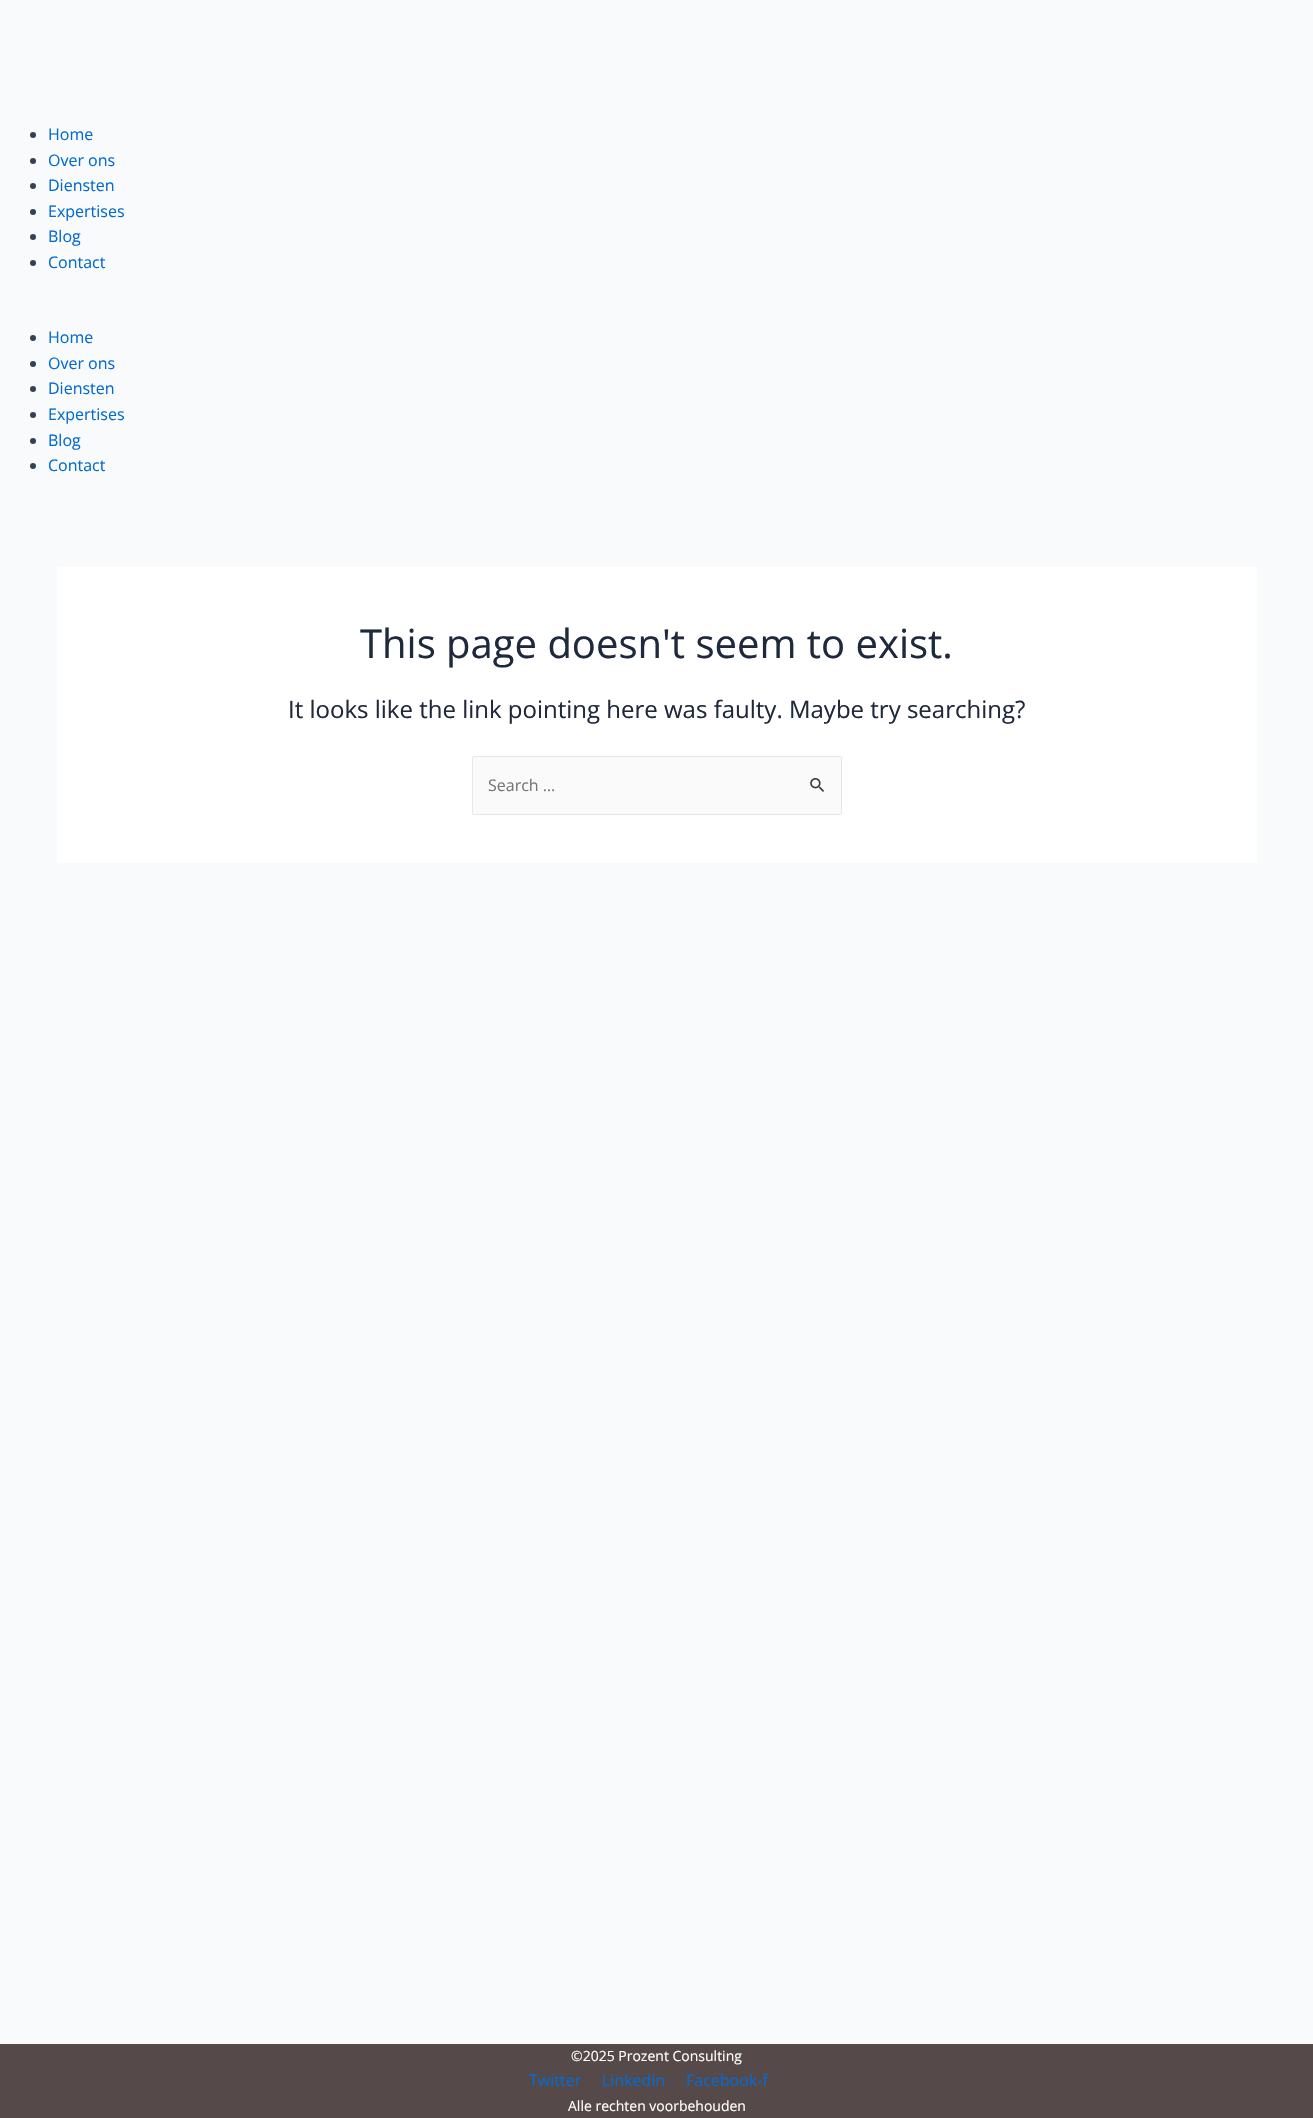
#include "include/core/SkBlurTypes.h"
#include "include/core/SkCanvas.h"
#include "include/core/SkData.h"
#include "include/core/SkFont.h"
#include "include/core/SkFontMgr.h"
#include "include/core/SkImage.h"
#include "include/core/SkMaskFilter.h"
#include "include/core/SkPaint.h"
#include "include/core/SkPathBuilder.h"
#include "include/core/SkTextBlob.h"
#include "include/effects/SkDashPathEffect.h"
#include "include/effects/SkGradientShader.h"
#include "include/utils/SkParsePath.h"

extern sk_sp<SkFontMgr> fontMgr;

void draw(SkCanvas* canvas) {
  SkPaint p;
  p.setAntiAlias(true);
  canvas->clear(SkColorSetRGB(249, 250, 251));
  p.setColor(SkColorSetRGB(51, 65, 85));
  canvas->drawCircle(33, 135, 3, p);
  canvas->drawCircle(33, 161, 3, p);
  canvas->drawCircle(33, 186, 3, p);
  canvas->drawCircle(33, 212, 3, p);
  canvas->drawCircle(33, 237, 3, p);
  canvas->drawCircle(33, 263, 3, p);
  canvas->drawCircle(33, 338, 3, p);
  canvas->drawCircle(33, 364, 3, p);
  canvas->drawCircle(33, 389, 3, p);
  canvas->drawCircle(33, 415, 3, p);
  canvas->drawCircle(33, 441, 3, p);
  canvas->drawCircle(33, 466, 3, p);
  p.setColor(SK_ColorWHITE);
  canvas->drawRect(SkRect::MakeLTRB(57, 567, 1257, 863), p);
  p.setColor(SkColorSetRGB(250, 250, 250));
  canvas->drawRoundRect(SkRect::MakeLTRB(472.5f, 756.5f, 841.5f, 814.5f), 1.5f, 1.5f, p);
  p.setStyle(SkPaint::kStroke_Style);
  p.setStrokeWidth(1);
  p.setColor(SkColorSetRGB(226, 232, 240));
  canvas->drawRoundRect(SkRect::MakeLTRB(472.5f, 756.5f, 841.5f, 814.5f), 1.5f, 1.5f, p);
  canvas->drawImageRect(SkImages::DeferredFromEncodedData(SkData::MakeFromFileName("images/1.png")), SkRect::MakeLTRB(810, 778, 825, 792), SkSamplingOptions());
  p.setStyle(SkPaint::kFill_Style);
  p.setColor(SkColorSetRGB(85, 73, 73));
  canvas->drawRect(SkRect::MakeLTRB(0, 2044, 1313, 2118), p);
  SkFont font1(fontMgr->matchFamilyStyle("Open Sans", SkFontStyle::Normal()), 16);
  font1.setSubpixel(true);
  p.setColor(SkColorSetRGB(4, 107, 210));
  canvas->drawString("Home", 48, 140, font1, p);
  canvas->drawString("Over ons", 48, 166, font1, p);
  canvas->drawString("Diensten", 48, 191, font1, p);
  canvas->drawString("Expertises", 48, 217, font1, p);
  canvas->drawString("Blog", 48, 242, font1, p);
  canvas->drawString("Contact", 48, 268, font1, p);
  canvas->drawString("Home", 48, 343, font1, p);
  canvas->drawString("Over ons", 48, 369, font1, p);
  canvas->drawString("Diensten", 48, 394, font1, p);
  canvas->drawString("Expertises", 48, 420, font1, p);
  canvas->drawString("Blog", 48, 446, font1, p);
  canvas->drawString("Contact", 48, 471, font1, p);
  SkFont font2(fontMgr->matchFamilyStyle("Open Sans", SkFontStyle::Normal()), 40);
  font2.setSubpixel(true);
  p.setColor(SkColorSetRGB(30, 41, 59));
  canvas->drawString("This page doesn't seem to exist.", 360, 658, font2, p);
  SkFont font3(fontMgr->matchFamilyStyle("Open Sans", SkFontStyle::Normal()), 24);
  font3.setSubpixel(true);
  canvas->drawString("It looks like the link pointing here was faulty. Maybe try searching?", 288, 718, font3, p);
  p.setColor(SkColorSetRGB(117, 117, 117));
  canvas->drawString("Search …", 488, 791, font1, p);
  SkFont font4(fontMgr->matchFamilyStyle("Open Sans", SkFontStyle::Normal()), 14);
  font4.setSubpixel(true);
  p.setColor(SK_ColorWHITE);
  canvas->drawString("©2025 Prozent Consulting", 571, 2061, font4, p);
  p.setColor(SkColorSetRGB(4, 107, 210));
  canvas->drawString("Twitter", 529, 2086, font1, p);
  canvas->drawString("Linkedin", 602, 2086, font1, p);
  canvas->drawString("Facebook-f", 686, 2086, font1, p);
  p.setColor(SK_ColorWHITE);
  canvas->drawString("Alle rechten voorbehouden", 568, 2111, font4, p);
}
